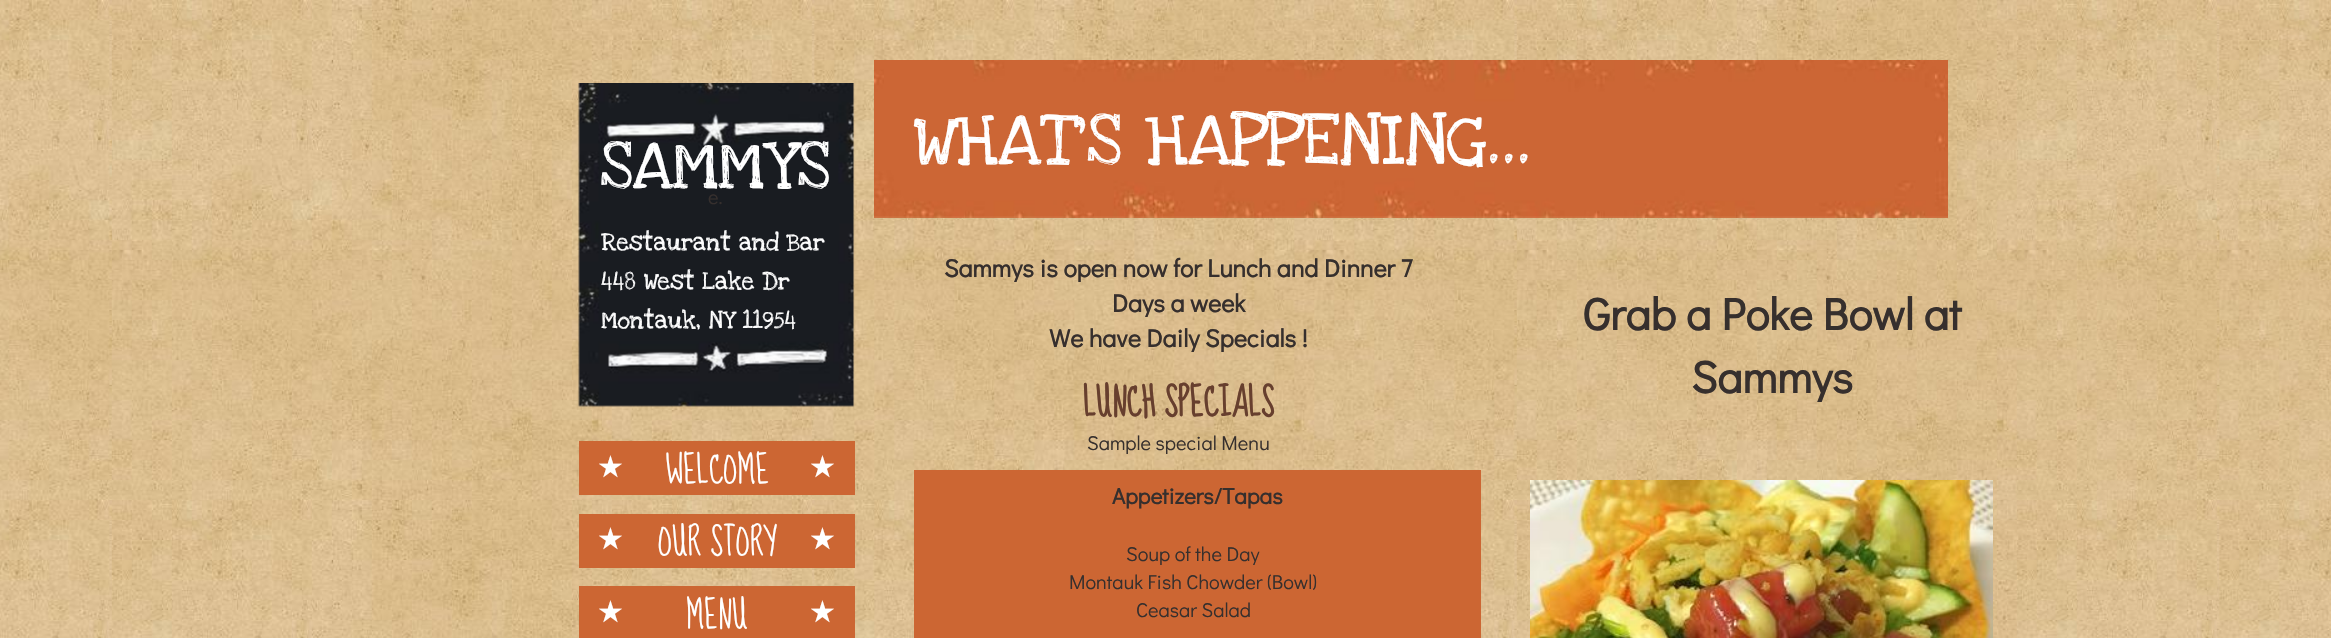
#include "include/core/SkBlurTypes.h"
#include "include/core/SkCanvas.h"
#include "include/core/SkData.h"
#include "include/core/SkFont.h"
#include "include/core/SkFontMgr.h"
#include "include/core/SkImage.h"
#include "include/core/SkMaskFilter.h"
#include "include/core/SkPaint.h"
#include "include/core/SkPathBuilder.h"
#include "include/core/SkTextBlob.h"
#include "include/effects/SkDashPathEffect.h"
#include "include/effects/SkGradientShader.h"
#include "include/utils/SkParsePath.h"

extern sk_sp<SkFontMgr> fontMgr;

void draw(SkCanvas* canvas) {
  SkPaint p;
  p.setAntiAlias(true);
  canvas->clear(SK_ColorWHITE);
  canvas->drawImageRect(SkImages::DeferredFromEncodedData(SkData::MakeFromFileName("images/1.png")), SkRect::MakeLTRB(0, 0, 2331, 638), SkSamplingOptions());
  canvas->drawImageRect(SkImages::DeferredFromEncodedData(SkData::MakeFromFileName("images/2.png")), SkRect::MakeLTRB(578, 83, 855, 407), SkSamplingOptions());
  canvas->drawImageRect(SkImages::DeferredFromEncodedData(SkData::MakeFromFileName("images/3.png")), SkRect::MakeLTRB(874, 60, 1948, 218), SkSamplingOptions());
  p.setColor(SkColorSetRGB(204, 102, 51));
  canvas->drawRect(SkRect::MakeLTRB(579, 441, 855, 495), p);
  canvas->drawRect(SkRect::MakeLTRB(579, 514, 855, 568), p);
  canvas->drawRect(SkRect::MakeLTRB(579, 586, 855, 638), p);
  canvas->drawRect(SkRect::MakeLTRB(914, 470, 1481, 638), p);
  canvas->drawImageRect(SkImages::DeferredFromEncodedData(SkData::MakeFromFileName("images/4.png")), SkRect::MakeLTRB(1530, 480, 1993, 638), SkSamplingOptions());
  SkFont font1(fontMgr->matchFamilyStyle("Love Ya Like A Sister", SkFontStyle::Normal()), 70);
  font1.setSubpixel(true);
  p.setColor(SK_ColorWHITE);
  canvas->drawString("SAMMYS", 600, 188, font1, p);
  SkFont font2(fontMgr->matchFamilyStyle("Didact Gothic", SkFontStyle::Normal()), 20);
  font2.setSubpixel(true);
  p.setColor(SkColorSetRGB(54, 47, 45));
  canvas->drawString("e.", 708, 204, font2, p);
  SkFont font3(fontMgr->matchFamilyStyle("Love Ya Like A Sister", SkFontStyle::Normal()), 75);
  font3.setSubpixel(true);
  p.setColor(SK_ColorWHITE);
  canvas->drawString("WHAT'S HAPPENING...", 913, 164, font3, p);
  SkFont font4(fontMgr->matchFamilyStyle("Love Ya Like A Sister", SkFontStyle::Normal()), 25);
  font4.setSubpixel(true);
  canvas->drawString("Restaurant and Bar", 601, 250, font4, p);
  canvas->drawString("448 West Lake Dr", 601, 289, font4, p);
  canvas->drawString("Montauk, NY 11954", 601, 328, font4, p);
  SkFont font5(fontMgr->matchFamilyStyle("Didact Gothic", SkFontStyle::Bold()), 25);
  font5.setSubpixel(true);
  p.setColor(SkColorSetRGB(54, 47, 45));
  canvas->drawString("Sammys is open now for Lunch and Dinner 7", 944, 277, font5, p);
  canvas->drawString("Days a week", 1112, 312, font5, p);
  canvas->drawString("We have Daily Specials !", 1049, 347, font5, p);
  SkFont font6(fontMgr->matchFamilyStyle("Didact Gothic", SkFontStyle::Bold()), 45);
  font6.setSubpixel(true);
  canvas->drawString("Grab a Poke Bowl at", 1583, 330, font6, p);
  canvas->drawString("Sammys", 1691, 393, font6, p);
  SkFont font7(fontMgr->matchFamilyStyle("Sue Ellen Francisco", SkFontStyle::Bold()), 35);
  font7.setSubpixel(true);
  p.setColor(SkColorSetRGB(103, 63, 46));
  canvas->drawString("LUNCH SPECIALS", 1083, 416, font7, p);
  p.setColor(SkColorSetRGB(54, 47, 45));
  canvas->drawString("Sample special Menu", 1087, 450, font2, p);
  SkFont font8(fontMgr->matchFamilyStyle("DejaVu Sans", SkFontStyle::Normal()), 30);
  font8.setSubpixel(true);
  p.setColor(SK_ColorWHITE);
  canvas->drawString("★", 597, 477, font8, p);
  SkFont font9(fontMgr->matchFamilyStyle("Sue Ellen Francisco", SkFontStyle::Normal()), 34);
  font9.setSubpixel(true);
  canvas->drawString("WELCOME", 665, 483, font9, p);
  canvas->drawString("★", 809, 477, font8, p);
  canvas->drawString("★", 597, 549, font8, p);
  canvas->drawString("OUR STORY", 658, 555, font9, p);
  canvas->drawString("★", 809, 549, font8, p);
  canvas->drawString("★", 597, 622, font8, p);
  canvas->drawString("MENU", 686, 628, font9, p);
  canvas->drawString("★", 809, 622, font8, p);
  SkFont font10(fontMgr->matchFamilyStyle("Didact Gothic", SkFontStyle::Bold()), 22.5f);
  font10.setSubpixel(true);
  p.setColor(SkColorSetRGB(54, 47, 45));
  canvas->drawString("Appetizers/Tapas", 1112, 504, font10, p);
  canvas->drawString("Soup of the Day", 1126, 561, font2, p);
  canvas->drawString("Montauk Fish Chowder (Bowl)", 1069, 589, font2, p);
  canvas->drawString("Ceasar Salad", 1136, 617, font2, p);
}
